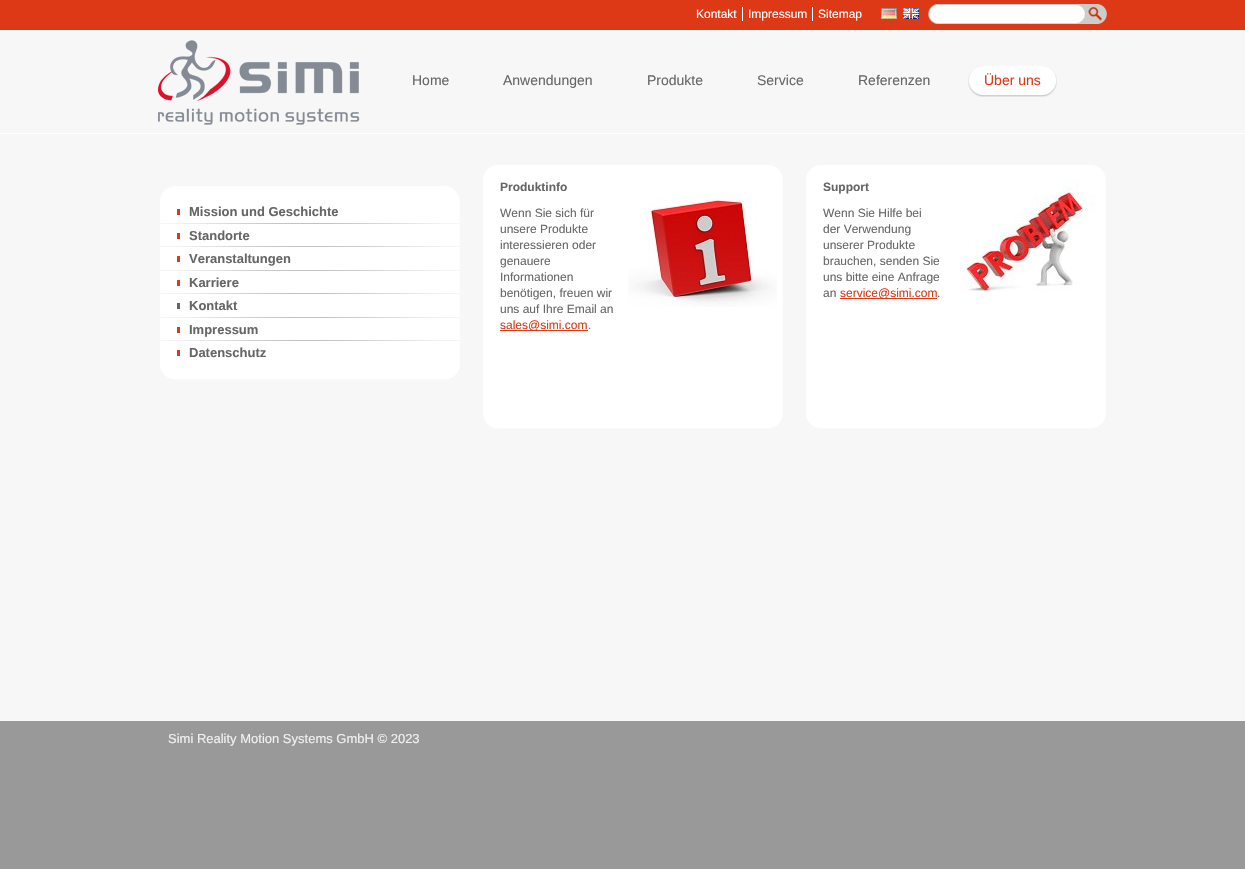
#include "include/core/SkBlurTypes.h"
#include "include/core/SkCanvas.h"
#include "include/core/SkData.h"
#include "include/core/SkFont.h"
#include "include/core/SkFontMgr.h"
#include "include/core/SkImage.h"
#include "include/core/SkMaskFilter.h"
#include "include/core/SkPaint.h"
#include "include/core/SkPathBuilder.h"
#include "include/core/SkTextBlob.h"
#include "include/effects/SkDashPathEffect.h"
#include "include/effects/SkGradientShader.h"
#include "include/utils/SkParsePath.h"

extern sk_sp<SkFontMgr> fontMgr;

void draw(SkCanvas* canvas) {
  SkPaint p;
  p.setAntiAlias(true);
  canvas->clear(SkColorSetRGB(247, 247, 247));
  p.setColor(SkColorSetRGB(221, 57, 22));
  canvas->drawRect(SkRect::MakeLTRB(0, 0, 1245, 30), p);
  p.setColor(SK_ColorWHITE);
  canvas->drawRect(SkRect::MakeLTRB(742, 7, 743, 21), p);
  canvas->drawRect(SkRect::MakeLTRB(812, 7, 813, 21), p);
  canvas->drawImageRect(SkImages::DeferredFromEncodedData(SkData::MakeFromFileName("images/1.png")), SkRect::MakeLTRB(881, 8, 897, 19), SkSamplingOptions());
  canvas->drawImageRect(SkImages::DeferredFromEncodedData(SkData::MakeFromFileName("images/2.png")), SkRect::MakeLTRB(903, 8, 919, 19), SkSamplingOptions());
  canvas->drawImageRect(SkImages::DeferredFromEncodedData(SkData::MakeFromFileName("images/3.png")), SkRect::MakeLTRB(928, 4, 1107, 24), SkSamplingOptions());
  canvas->drawImageRect(SkImages::DeferredFromEncodedData(SkData::MakeFromFileName("images/4.png")), SkRect::MakeLTRB(158, 40, 360, 125), SkSamplingOptions());
  canvas->drawImageRect(SkImages::DeferredFromEncodedData(SkData::MakeFromFileName("images/5.png")), SkRect::MakeLTRB(982, 66, 1057, 97), SkSamplingOptions());
  canvas->drawImageRect(SkImages::DeferredFromEncodedData(SkData::MakeFromFileName("images/6.png")), SkRect::MakeLTRB(967, 66, 982, 97), SkSamplingOptions());
  canvas->drawRect(SkRect::MakeLTRB(0, 133, 1245, 134), p);
  canvas->drawImageRect(SkImages::DeferredFromEncodedData(SkData::MakeFromFileName("images/7.png")), SkRect::MakeLTRB(160, 186, 460, 368), SkSamplingOptions());
  canvas->drawImageRect(SkImages::DeferredFromEncodedData(SkData::MakeFromFileName("images/8.png")), SkRect::MakeLTRB(160, 223, 460, 224), SkSamplingOptions());
  p.setColor(SkColorSetRGB(221, 57, 22));
  canvas->drawRect(SkRect::MakeLTRB(177, 209, 180, 215), p);
  canvas->drawImageRect(SkImages::DeferredFromEncodedData(SkData::MakeFromFileName("images/8.png")), SkRect::MakeLTRB(160, 246, 460, 247), SkSamplingOptions());
  canvas->drawRect(SkRect::MakeLTRB(177, 233, 180, 239), p);
  canvas->drawImageRect(SkImages::DeferredFromEncodedData(SkData::MakeFromFileName("images/8.png")), SkRect::MakeLTRB(160, 270, 460, 271), SkSamplingOptions());
  canvas->drawRect(SkRect::MakeLTRB(177, 256, 180, 262), p);
  canvas->drawImageRect(SkImages::DeferredFromEncodedData(SkData::MakeFromFileName("images/8.png")), SkRect::MakeLTRB(160, 293, 460, 294), SkSamplingOptions());
  canvas->drawRect(SkRect::MakeLTRB(177, 280, 180, 286), p);
  canvas->drawImageRect(SkImages::DeferredFromEncodedData(SkData::MakeFromFileName("images/8.png")), SkRect::MakeLTRB(160, 317, 460, 318), SkSamplingOptions());
  p.setColor(SkColorSetRGB(102, 102, 102));
  canvas->drawRect(SkRect::MakeLTRB(177, 303, 180, 309), p);
  canvas->drawImageRect(SkImages::DeferredFromEncodedData(SkData::MakeFromFileName("images/8.png")), SkRect::MakeLTRB(160, 340, 460, 341), SkSamplingOptions());
  p.setColor(SkColorSetRGB(221, 57, 22));
  canvas->drawRect(SkRect::MakeLTRB(177, 327, 180, 333), p);
  canvas->drawRect(SkRect::MakeLTRB(177, 350, 180, 356), p);
  canvas->drawImageRect(SkImages::DeferredFromEncodedData(SkData::MakeFromFileName("images/9.png")), SkRect::MakeLTRB(160, 368, 460, 380), SkSamplingOptions());
  canvas->drawImageRect(SkImages::DeferredFromEncodedData(SkData::MakeFromFileName("images/10.png")), SkRect::MakeLTRB(483, 165, 783, 417), SkSamplingOptions());
  canvas->drawRect(SkRect::MakeLTRB(500, 330, 588, 331), p);
  canvas->drawImageRect(SkImages::DeferredFromEncodedData(SkData::MakeFromFileName("images/11.png")), SkRect::MakeLTRB(628, 195, 777, 307), SkSamplingOptions());
  canvas->drawImageRect(SkImages::DeferredFromEncodedData(SkData::MakeFromFileName("images/9.png")), SkRect::MakeLTRB(483, 417, 783, 429), SkSamplingOptions());
  canvas->drawImageRect(SkImages::DeferredFromEncodedData(SkData::MakeFromFileName("images/10.png")), SkRect::MakeLTRB(806, 165, 1106, 417), SkSamplingOptions());
  canvas->drawRect(SkRect::MakeLTRB(840, 298, 937, 299), p);
  canvas->drawImageRect(SkImages::DeferredFromEncodedData(SkData::MakeFromFileName("images/12.png")), SkRect::MakeLTRB(966, 179, 1095, 292), SkSamplingOptions());
  canvas->drawImageRect(SkImages::DeferredFromEncodedData(SkData::MakeFromFileName("images/9.png")), SkRect::MakeLTRB(806, 417, 1106, 429), SkSamplingOptions());
  p.setColor(SkColorSetRGB(153, 153, 153));
  canvas->drawRect(SkRect::MakeLTRB(0, 721, 1245, 869), p);
  SkFont font1(fontMgr->matchFamilyStyle("Liberation Sans", SkFontStyle::Normal()), 12);
  font1.setSubpixel(true);
  p.setColor(SK_ColorWHITE);
  canvas->drawString("Kontakt", 696, 18, font1, p);
  canvas->drawString("Impressum", 748, 18, font1, p);
  canvas->drawString("Sitemap", 818, 18, font1, p);
  SkFont font2(fontMgr->matchFamilyStyle("Liberation Sans", SkFontStyle::Normal()), 14);
  font2.setSubpixel(true);
  p.setColor(SkColorSetRGB(102, 102, 102));
  canvas->drawString("Home", 412, 85, font2, p);
  canvas->drawString("Anwendungen", 503, 85, font2, p);
  canvas->drawString("Produkte", 647, 85, font2, p);
  canvas->drawString("Service", 757, 85, font2, p);
  canvas->drawString("Referenzen", 858, 85, font2, p);
  p.setColor(SkColorSetRGB(221, 57, 22));
  canvas->drawString("Über uns", 984, 85, font2, p);
  SkFont font3(fontMgr->matchFamilyStyle("Liberation Sans", SkFontStyle::Bold()), 13);
  font3.setSubpixel(true);
  p.setColor(SkColorSetRGB(102, 102, 102));
  canvas->drawString("Mission und Geschichte", 189, 216, font3, p);
  canvas->drawString("Standorte", 189, 240, font3, p);
  canvas->drawString("Veranstaltungen", 189, 263, font3, p);
  canvas->drawString("Karriere", 189, 287, font3, p);
  canvas->drawString("Kontakt", 189, 310, font3, p);
  canvas->drawString("Impressum", 189, 334, font3, p);
  canvas->drawString("Datenschutz", 189, 357, font3, p);
  SkFont font4(fontMgr->matchFamilyStyle("Liberation Sans", SkFontStyle::Bold()), 12);
  font4.setSubpixel(true);
  canvas->drawString("Produktinfo", 500, 191, font4, p);
  canvas->drawString("Wenn Sie sich für", 500, 217, font1, p);
  canvas->drawString("unsere Produkte", 500, 233, font1, p);
  canvas->drawString("interessieren oder", 500, 249, font1, p);
  canvas->drawString("genauere", 500, 265, font1, p);
  canvas->drawString("Informationen", 500, 281, font1, p);
  canvas->drawString("benötigen, freuen wir", 500, 297, font1, p);
  canvas->drawString("uns auf Ihre Email an", 500, 313, font1, p);
  p.setColor(SkColorSetRGB(221, 57, 22));
  canvas->drawString("sales@simi.com", 500, 329, font1, p);
  p.setColor(SkColorSetRGB(102, 102, 102));
  canvas->drawString(".", 588, 329, font1, p);
  canvas->drawString("Support", 823, 191, font4, p);
  canvas->drawString("Wenn Sie Hilfe bei", 823, 217, font1, p);
  canvas->drawString("der Verwendung", 823, 233, font1, p);
  canvas->drawString("unserer Produkte", 823, 249, font1, p);
  canvas->drawString("brauchen, senden Sie", 823, 265, font1, p);
  canvas->drawString("uns bitte eine Anfrage", 823, 281, font1, p);
  canvas->drawString("an", 823, 297, font1, p);
  p.setColor(SkColorSetRGB(221, 57, 22));
  canvas->drawString("service@simi.com", 840, 297, font1, p);
  p.setColor(SkColorSetRGB(102, 102, 102));
  canvas->drawString(".", 937, 297, font1, p);
  SkFont font5(fontMgr->matchFamilyStyle("Liberation Sans", SkFontStyle::Normal()), 13);
  font5.setSubpixel(true);
  p.setColor(SkColorSetRGB(242, 242, 242));
  canvas->drawString("Simi Reality Motion Systems GmbH © 2023", 168, 743, font5, p);
}
